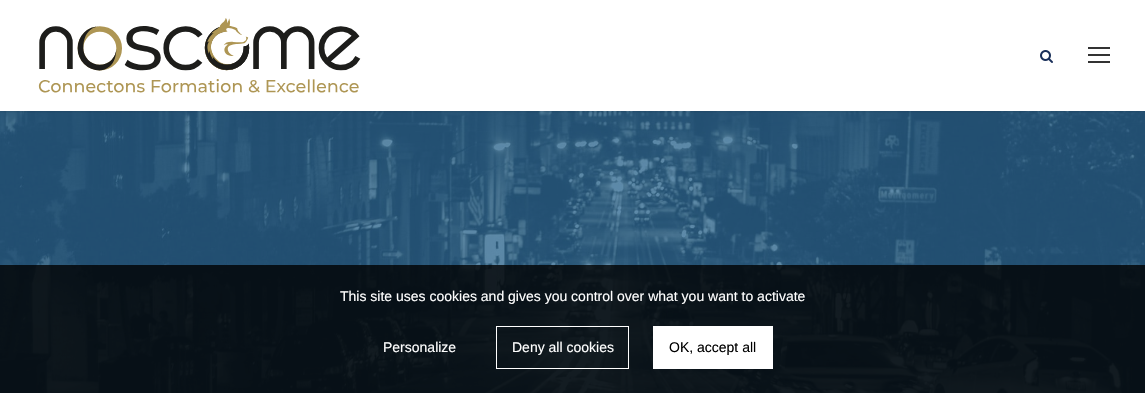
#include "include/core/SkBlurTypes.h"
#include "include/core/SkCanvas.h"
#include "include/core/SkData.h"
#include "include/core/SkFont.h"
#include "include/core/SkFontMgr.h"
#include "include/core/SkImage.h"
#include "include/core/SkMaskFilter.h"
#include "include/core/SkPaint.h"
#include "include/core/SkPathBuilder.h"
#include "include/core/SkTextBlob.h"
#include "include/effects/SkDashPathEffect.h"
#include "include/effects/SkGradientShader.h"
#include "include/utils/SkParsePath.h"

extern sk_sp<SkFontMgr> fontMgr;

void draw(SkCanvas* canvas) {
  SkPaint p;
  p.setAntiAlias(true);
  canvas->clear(SK_ColorWHITE);
  p.setColor(SkColorSetRGB(35, 97, 142));
  canvas->drawRect(SkRect::MakeLTRB(0, 111, 1145, 393), p);
  canvas->drawImageRect(SkImages::DeferredFromEncodedData(SkData::MakeFromFileName("images/3.png")), SkRect::MakeLTRB(0, 111, 1145, 393), SkSamplingOptions());
  canvas->save();
  canvas->clipRect(SkRect::MakeLTRB(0, 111, 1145, 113));
  p.setColor(SkColorSetARGB(26, 0, 0, 0));
  p.setMaskFilter(SkMaskFilter::MakeBlur(kNormal_SkBlurStyle, 1));
  canvas->drawRect(SkRect::MakeLTRB(0, 1, 1145, 112), p);
  p.setMaskFilter(nullptr);
  canvas->restore();
  canvas->drawImageRect(SkImages::DeferredFromEncodedData(SkData::MakeFromFileName("images/1.png")), SkRect::MakeLTRB(38, 18, 361, 93), SkSamplingOptions());
  canvas->drawImageRect(SkImages::DeferredFromEncodedData(SkData::MakeFromFileName("images/2.png")), SkRect::MakeLTRB(1040, 50, 1053, 63), SkSamplingOptions());
  p.setColor(SkColorSetRGB(51, 51, 51));
  canvas->drawRect(SkRect::MakeLTRB(1088, 47, 1110, 49), p);
  canvas->drawRect(SkRect::MakeLTRB(1088, 54, 1110, 56), p);
  canvas->drawRect(SkRect::MakeLTRB(1088, 61, 1110, 63), p);
  p.setColor(SkColorSetARGB(204, 0, 0, 0));
  canvas->drawRect(SkRect::MakeLTRB(0, 265, 1145, 393), p);
  p.setStyle(SkPaint::kStroke_Style);
  p.setStrokeWidth(1);
  p.setColor(SK_ColorWHITE);
  canvas->drawRect(SkRect::MakeLTRB(496.5f, 326.5f, 628.5f, 368.5f), p);
  p.setStyle(SkPaint::kFill_Style);
  canvas->drawRect(SkRect::MakeLTRB(653, 326, 773, 369), p);
  SkFont font1(fontMgr->matchFamilyStyle("Liberation Sans", SkFontStyle::Normal()), 14);
  font1.setSubpixel(true);
  canvas->drawString("This site uses cookies and gives you control over what you want to activate", 340, 301, font1, p);
  canvas->drawString("Personalize", 383, 352, font1, p);
  canvas->drawString("Deny all cookies", 512, 352, font1, p);
  p.setColor(SK_ColorBLACK);
  canvas->drawString("OK, accept all", 669, 352, font1, p);
}
